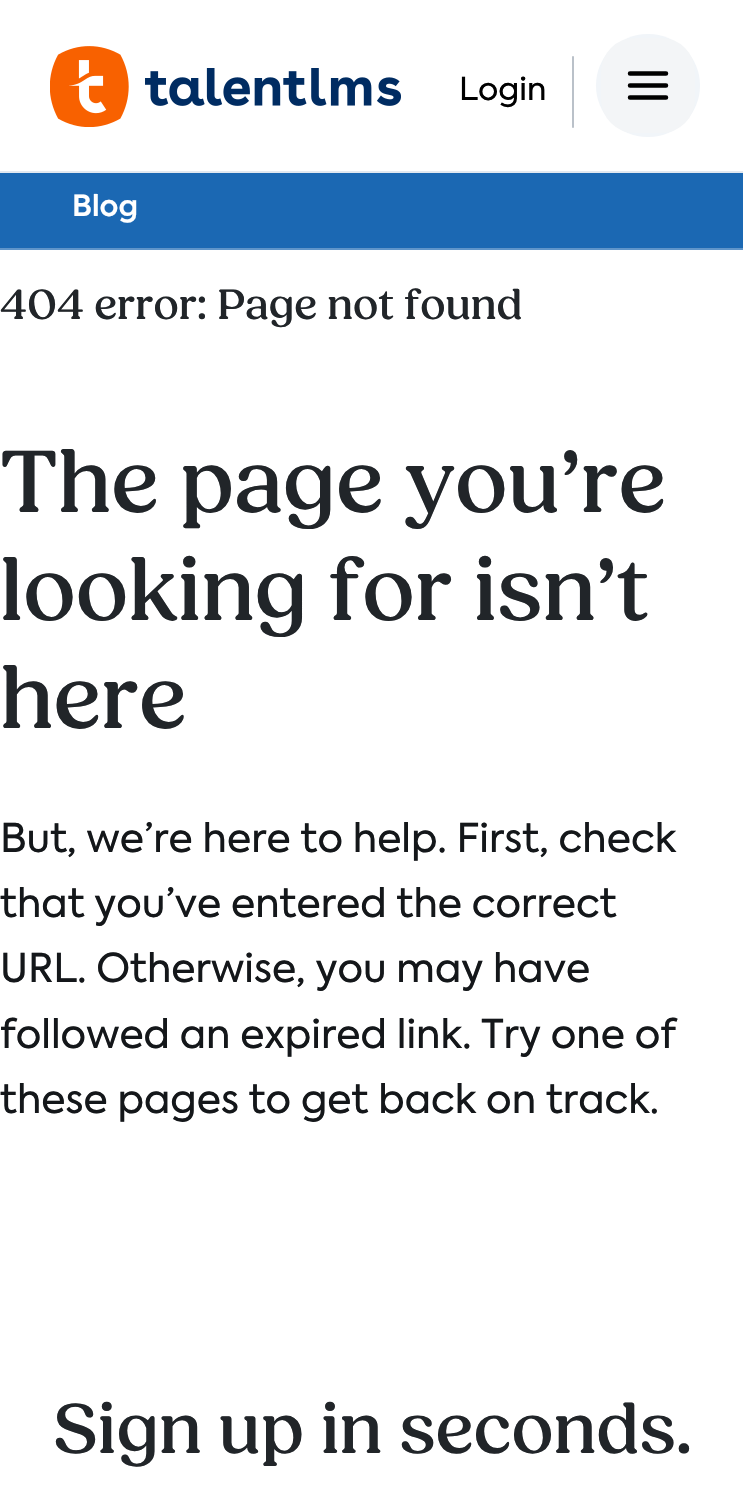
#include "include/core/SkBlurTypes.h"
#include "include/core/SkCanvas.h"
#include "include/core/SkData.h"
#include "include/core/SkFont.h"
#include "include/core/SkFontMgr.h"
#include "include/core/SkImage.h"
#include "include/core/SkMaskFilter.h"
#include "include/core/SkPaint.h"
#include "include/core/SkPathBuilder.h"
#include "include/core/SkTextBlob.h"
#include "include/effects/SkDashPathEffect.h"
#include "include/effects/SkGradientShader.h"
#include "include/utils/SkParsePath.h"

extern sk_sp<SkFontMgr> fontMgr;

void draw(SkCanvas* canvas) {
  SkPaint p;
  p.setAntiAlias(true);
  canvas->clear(SK_ColorWHITE);
  p.setColor(SkColorSetRGB(226, 232, 240));
  canvas->drawRect(SkRect::MakeLTRB(0, 171, 743, 173), p);
  canvas->drawImageRect(SkImages::DeferredFromEncodedData(SkData::MakeFromFileName("images/1.png")), SkRect::MakeLTRB(50, 46, 401, 127), SkSamplingOptions());
  p.setColor(SkColorSetRGB(186, 193, 201));
  canvas->drawRoundRect(SkRect::MakeLTRB(572, 56, 574, 128), 1, 1, p);
  p.setColor(SkColorSetRGB(241, 245, 249));
  canvas->drawRoundRect(SkRect::MakeLTRB(596, 34, 700, 137), 51.5f, 51.5f, p);
  p.setColor(SkColorSetRGB(243, 245, 247));
  canvas->drawRoundRect(SkRect::MakeLTRB(601, 38, 695, 133), 34, 34, p);
  p.setStyle(SkPaint::kStroke_Style);
  p.setStrokeWidth(4.5f);
  p.setStrokeCap(SkPaint::kRound_Cap);
  p.setColor(SK_ColorBLACK);
  canvas->drawPath(SkPathBuilder().moveTo(630, 85.5f).lineTo(666, 85.5f).moveTo(630, 97.5f).lineTo(666, 97.5f).moveTo(630, 73.5f).lineTo(666, 73.5f).detach(), p);
  p.setStyle(SkPaint::kFill_Style);
  p.setColor(SkColorSetRGB(27, 104, 179));
  canvas->drawRect(SkRect::MakeLTRB(0, 173, 743, 248), p);
  p.setColor(SkColorSetRGB(95, 149, 202));
  canvas->drawRect(SkRect::MakeLTRB(0, 248, 743, 250), p);
  SkFont font1(fontMgr->matchFamilyStyle("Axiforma", SkFontStyle::Normal()), 31.5f);
  font1.setSubpixel(true);
  p.setColor(SK_ColorBLACK);
  canvas->drawString("Login", 459, 100, font1, p);
  SkFont font2(fontMgr->matchFamilyStyle("Axiforma", SkFontStyle(600, SkFontStyle::kNormal_Width, SkFontStyle::kUpright_Slant)), 29);
  font2.setSubpixel(true);
  p.setColor(SK_ColorWHITE);
  canvas->drawString("Blog", 72, 216, font2, p);
  SkFont font3(fontMgr->matchFamilyStyle("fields", SkFontStyle(500, SkFontStyle::kNormal_Width, SkFontStyle::kUpright_Slant)), 43.25f);
  font3.setSubpixel(true);
  p.setColor(SkColorSetRGB(33, 37, 41));
  canvas->drawString("404 error: Page not found", 0, 319, font3, p);
  SkFont font4(fontMgr->matchFamilyStyle("fields", SkFontStyle(500, SkFontStyle::kNormal_Width, SkFontStyle::kUpright_Slant)), 90);
  font4.setSubpixel(true);
  canvas->drawString("The page you’re", 0, 512, font4, p);
  canvas->drawString("looking for isn’t", 0, 620, font4, p);
  canvas->drawString("here", 0, 728, font4, p);
  SkFont font5(fontMgr->matchFamilyStyle("Axiforma", SkFontStyle::Normal()), 39.6f);
  font5.setSubpixel(true);
  p.setColor(SkColorSetRGB(20, 23, 26));
  canvas->drawString("But, we’re here to help. First, check", 0, 852, font5, p);
  canvas->drawString("that you’ve entered the correct", 0, 917, font5, p);
  canvas->drawString("URL. Otherwise, you may have", 0, 982, font5, p);
  canvas->drawString("followed an expired link. Try one of", 0, 1048, font5, p);
  canvas->drawString("these pages to get back on track.", 0, 1113, font5, p);
  SkFont font6(fontMgr->matchFamilyStyle("fields", SkFontStyle(500, SkFontStyle::kNormal_Width, SkFontStyle::kUpright_Slant)), 72);
  font6.setSubpixel(true);
  p.setColor(SkColorSetRGB(33, 37, 41));
  canvas->drawString("Sign up in seconds.", 53, 1453, font6, p);
}
